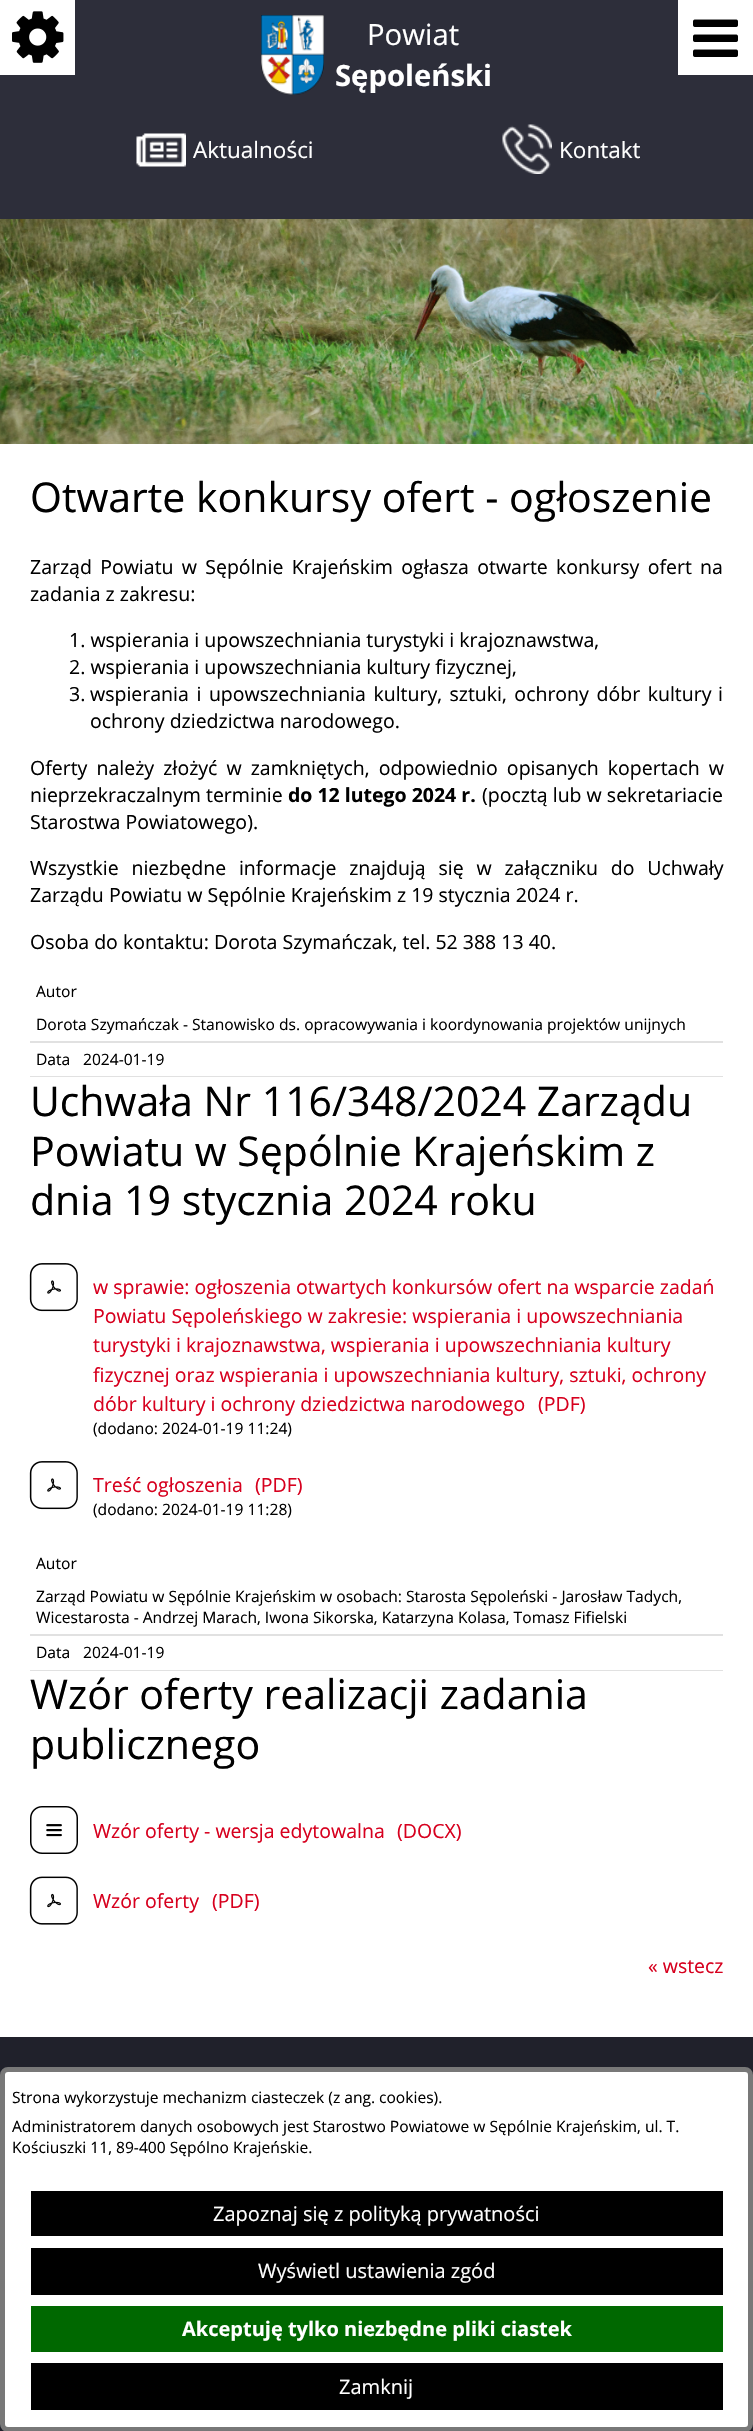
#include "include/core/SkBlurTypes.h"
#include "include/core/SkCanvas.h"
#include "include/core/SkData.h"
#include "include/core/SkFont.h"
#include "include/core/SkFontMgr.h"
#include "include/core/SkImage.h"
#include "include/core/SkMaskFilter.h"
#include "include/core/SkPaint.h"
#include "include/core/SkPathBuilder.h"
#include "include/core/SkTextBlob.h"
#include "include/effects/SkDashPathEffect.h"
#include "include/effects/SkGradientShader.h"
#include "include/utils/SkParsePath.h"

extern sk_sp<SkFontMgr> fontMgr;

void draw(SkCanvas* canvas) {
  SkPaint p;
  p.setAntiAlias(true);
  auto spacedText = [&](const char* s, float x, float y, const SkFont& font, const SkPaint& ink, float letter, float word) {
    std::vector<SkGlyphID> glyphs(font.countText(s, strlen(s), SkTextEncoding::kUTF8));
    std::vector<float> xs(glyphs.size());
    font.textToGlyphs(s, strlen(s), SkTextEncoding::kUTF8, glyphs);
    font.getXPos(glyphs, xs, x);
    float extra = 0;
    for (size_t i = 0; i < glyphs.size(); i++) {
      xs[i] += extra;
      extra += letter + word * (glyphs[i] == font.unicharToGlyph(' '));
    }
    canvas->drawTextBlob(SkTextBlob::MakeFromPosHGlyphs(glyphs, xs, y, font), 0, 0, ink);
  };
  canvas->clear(SK_ColorWHITE);
  p.setColor(SkColorSetRGB(45, 46, 58));
  canvas->drawRect(SkRect::MakeLTRB(0, 0, 753, 219), p);
  p.setColor(SK_ColorWHITE);
  canvas->drawRect(SkRect::MakeLTRB(0, 0, 75, 75), p);
  canvas->drawImageRect(SkImages::DeferredFromEncodedData(SkData::MakeFromFileName("images/1.png")), SkRect::MakeLTRB(12, 11, 64, 63), SkSamplingOptions());
  canvas->drawRect(SkRect::MakeLTRB(678, 0, 753, 75), p);
  canvas->drawImageRect(SkImages::DeferredFromEncodedData(SkData::MakeFromFileName("images/2.png")), SkRect::MakeLTRB(693, 19, 738, 57), SkSamplingOptions());
  canvas->drawImageRect(SkImages::DeferredFromEncodedData(SkData::MakeFromFileName("images/3.png")), SkRect::MakeLTRB(261, 15, 324, 95), SkSamplingOptions());
  canvas->drawImageRect(SkImages::DeferredFromEncodedData(SkData::MakeFromFileName("images/4.png")), SkRect::MakeLTRB(136, 133, 186, 167), SkSamplingOptions());
  canvas->drawImageRect(SkImages::DeferredFromEncodedData(SkData::MakeFromFileName("images/5.png")), SkRect::MakeLTRB(502, 124, 552, 174), SkSamplingOptions());
  canvas->drawImageRect(SkImages::DeferredFromEncodedData(SkData::MakeFromFileName("images/6.png")), SkRect::MakeLTRB(0, 219, 753, 444), SkSamplingOptions());
  p.setColor(SkColorSetRGB(225, 225, 225));
  canvas->drawRect(SkRect::MakeLTRB(30, 1041, 723, 1043), p);
  canvas->drawRect(SkRect::MakeLTRB(30, 1076, 723, 1077), p);
  canvas->drawImageRect(SkImages::DeferredFromEncodedData(SkData::MakeFromFileName("images/7.png")), SkRect::MakeLTRB(29, 1263, 78, 1312), SkSamplingOptions());
  canvas->drawImageRect(SkImages::DeferredFromEncodedData(SkData::MakeFromFileName("images/7.png")), SkRect::MakeLTRB(29, 1461, 78, 1510), SkSamplingOptions());
  canvas->drawRect(SkRect::MakeLTRB(30, 1634, 723, 1636), p);
  canvas->drawRect(SkRect::MakeLTRB(30, 1670, 723, 1671), p);
  canvas->drawImageRect(SkImages::DeferredFromEncodedData(SkData::MakeFromFileName("images/8.png")), SkRect::MakeLTRB(30, 1806, 78, 1854), SkSamplingOptions());
  canvas->drawImageRect(SkImages::DeferredFromEncodedData(SkData::MakeFromFileName("images/9.png")), SkRect::MakeLTRB(29, 1876, 78, 1925), SkSamplingOptions());
  p.setColor(SkColorSetRGB(32, 33, 43));
  canvas->drawRect(SkRect::MakeLTRB(0, 2037, 753, 2431), p);
  p.setColor(SK_ColorWHITE);
  canvas->drawRoundRect(SkRect::MakeLTRB(2.5f, 2069.5f, 750.5f, 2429.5f), 5.5f, 5.5f, p);
  p.setStyle(SkPaint::kStroke_Style);
  p.setStrokeWidth(5);
  p.setColor(SkColorSetRGB(120, 120, 120));
  canvas->drawRoundRect(SkRect::MakeLTRB(2.5f, 2069.5f, 750.5f, 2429.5f), 5.5f, 5.5f, p);
  p.setStyle(SkPaint::kFill_Style);
  p.setColor(SK_ColorBLACK);
  canvas->drawRect(SkRect::MakeLTRB(31, 2191, 723, 2236), p);
  canvas->drawRect(SkRect::MakeLTRB(31, 2248, 723, 2295), p);
  p.setColor(SkColorSetRGB(0, 104, 0));
  canvas->drawRect(SkRect::MakeLTRB(31, 2306, 723, 2352), p);
  p.setColor(SK_ColorBLACK);
  canvas->drawRect(SkRect::MakeLTRB(31, 2363, 723, 2410), p);
  SkFont font1(fontMgr->matchFamilyStyle("Open Sans", SkFontStyle::Normal()), 29.25f);
  font1.setSubpixel(true);
  p.setColor(SK_ColorWHITE);
  canvas->drawString("Powiat", 367, 45, font1, p);
  SkFont font2(fontMgr->matchFamilyStyle("Open Sans", SkFontStyle::Bold()), 29.25f);
  font2.setSubpixel(true);
  canvas->drawString("Sępoleński", 335, 86, font2, p);
  SkFont font3(fontMgr->matchFamilyStyle("Open Sans", SkFontStyle::Normal()), 22.5f);
  font3.setSubpixel(true);
  canvas->drawString("Aktualności", 193, 158, font3, p);
  canvas->drawString("Kontakt", 559, 158, font3, p);
  SkFont font4(fontMgr->matchFamilyStyle("Open Sans", SkFontStyle::Normal()), 41);
  font4.setSubpixel(true);
  p.setColor(SK_ColorBLACK);
  canvas->drawString("Otwarte konkursy ofert - ogłoszenie", 30, 512, font4, p);
  SkFont font5(fontMgr->matchFamilyStyle("Open Sans", SkFontStyle::Normal()), 19.5f);
  font5.setSubpixel(true);
  spacedText("Zarząd Powiatu w Sępólnie Krajeńskim ogłasza otwarte konkursy ofert na", 30, 574, font5, p, 0, 3.25f);
  canvas->drawString("zadania z zakresu:", 30, 601, font5, p);
  canvas->drawString("1. wspierania i upowszechniania turystyki i krajoznawstwa,", 69, 647, font5, p);
  canvas->drawString("2. wspierania i upowszechniania kultury fizycznej,", 69, 674, font5, p);
  canvas->drawString("3.", 69, 701, font5, p);
  spacedText("wspierania i upowszechniania kultury, sztuki, ochrony dóbr kultury", 90, 701, font5, p, 0, 2.5f);
  canvas->drawString("i", 718, 701, font5, p);
  canvas->drawString("ochrony dziedzictwa narodowego.", 90, 728, font5, p);
  spacedText("Oferty należy złożyć w zamkniętych, odpowiednio opisanych kopertach w", 30, 775, font5, p, 0, 4);
  canvas->drawString("nieprzekraczalnym terminie", 30, 802, font5, p);
  SkFont font6(fontMgr->matchFamilyStyle("Open Sans", SkFontStyle::Bold()), 19.5f);
  font6.setSubpixel(true);
  canvas->drawString("do 12 lutego 2024 r.", 288, 802, font6, p);
  canvas->drawString("(pocztą lub w sekretariacie", 482, 802, font5, p);
  canvas->drawString("Starostwa Powiatowego).", 30, 829, font5, p);
  spacedText("Wszystkie niezbędne informacje znajdują się w załączniku do Uchwały", 30, 875, font5, p, 0, 7.75f);
  canvas->drawString("Zarządu Powiatu w Sępólnie Krajeńskim z 19 stycznia 2024 r.", 30, 902, font5, p);
  canvas->drawString("Osoba do kontaktu: Dorota Szymańczak, tel. 52 388 13 40.", 30, 949, font5, p);
  SkFont font7(fontMgr->matchFamilyStyle("Open Sans", SkFontStyle::Normal()), 15.6f);
  font7.setSubpixel(true);
  canvas->drawString("Autor", 36, 997, font7, p);
  canvas->drawString("Dorota Szymańczak - Stanowisko ds. opracowywania i koordynowania projektów unijnych", 36, 1030, font7, p);
  canvas->drawString("Data", 36, 1065, font7, p);
  canvas->drawString("2024-01-19", 83, 1065, font7, p);
  canvas->drawString("Uchwała Nr 116/348/2024 Zarządu", 30, 1116, font4, p);
  canvas->drawString("Powiatu w Sępólnie Krajeńskim z", 30, 1166, font4, p);
  canvas->drawString("dnia 19 stycznia 2024 roku", 30, 1215, font4, p);
  p.setColor(SkColorSetRGB(215, 0, 30));
  canvas->drawString("w sprawie: ogłoszenia otwartych konkursów ofert na wsparcie zadań", 93, 1294, font5, p);
  canvas->drawString("Powiatu Sępoleńskiego w zakresie: wspierania i upowszechniania", 93, 1323, font5, p);
  canvas->drawString("turystyki i krajoznawstwa, wspierania i upowszechniania kultury", 93, 1352, font5, p);
  canvas->drawString("fizycznej oraz wspierania i upowszechniania kultury, sztuki, ochrony", 93, 1382, font5, p);
  canvas->drawString("dóbr kultury i ochrony dziedzictwa narodowego", 93, 1411, font5, p);
  canvas->drawString("(PDF)", 538, 1411, font5, p);
  p.setColor(SK_ColorBLACK);
  canvas->drawString("(dodano: 2024-01-19 11:24)", 93, 1434, font7, p);
  p.setColor(SkColorSetRGB(215, 0, 30));
  canvas->drawString("Treść ogłoszenia", 93, 1492, font5, p);
  canvas->drawString("(PDF)", 255, 1492, font5, p);
  p.setColor(SK_ColorBLACK);
  canvas->drawString("(dodano: 2024-01-19 11:28)", 93, 1515, font7, p);
  canvas->drawString("Autor", 36, 1569, font7, p);
  canvas->drawString("Zarząd Powiatu w Sępólnie Krajeńskim w osobach: Starosta Sępoleński - Jarosław Tadych,", 36, 1602, font7, p);
  canvas->drawString("Wicestarosta - Andrzej Marach, Iwona Sikorska, Katarzyna Kolasa, Tomasz Fifielski", 36, 1623, font7, p);
  canvas->drawString("Data", 36, 1658, font7, p);
  canvas->drawString("2024-01-19", 83, 1658, font7, p);
  canvas->drawString("Wzór oferty realizacji zadania", 30, 1709, font4, p);
  canvas->drawString("publicznego", 30, 1759, font4, p);
  p.setColor(SkColorSetRGB(215, 0, 30));
  canvas->drawString("Wzór oferty - wersja edytowalna", 93, 1838, font5, p);
  canvas->drawString("(DOCX)", 397, 1838, font5, p);
  canvas->drawString("Wzór oferty", 93, 1908, font5, p);
  canvas->drawString("(PDF)", 212, 1908, font5, p);
  canvas->drawString("« wstecz", 648, 1973, font5, p);
  p.setColor(SK_ColorBLACK);
  canvas->drawString("Strona wykorzystuje mechanizm ciasteczek (z ang.", 12, 2103, font7, p);
  canvas->drawString("cookies).", 379, 2103, font7, p);
  canvas->drawString("Administratorem danych osobowych jest Starostwo Powiatowe w Sępólnie Krajeńskim, ul. T.", 12, 2132, font7, p);
  canvas->drawString("Kościuszki 11, 89-400 Sępólno Krajeńskie.", 12, 2153, font7, p);
  SkFont font8(fontMgr->matchFamilyStyle("Open Sans", SkFontStyle::Normal()), 20);
  font8.setSubpixel(true);
  p.setColor(SK_ColorWHITE);
  canvas->drawString("Zapoznaj się z polityką prywatności", 213, 2221, font8, p);
  canvas->drawString("Wyświetl ustawienia zgód", 258, 2278, font8, p);
  SkFont font9(fontMgr->matchFamilyStyle("Open Sans", SkFontStyle::Bold()), 20);
  font9.setSubpixel(true);
  canvas->drawString("Akceptuję tylko niezbędne pliki ciastek", 182, 2336, font9, p);
  canvas->drawString("Zamknij", 339, 2394, font8, p);
}
